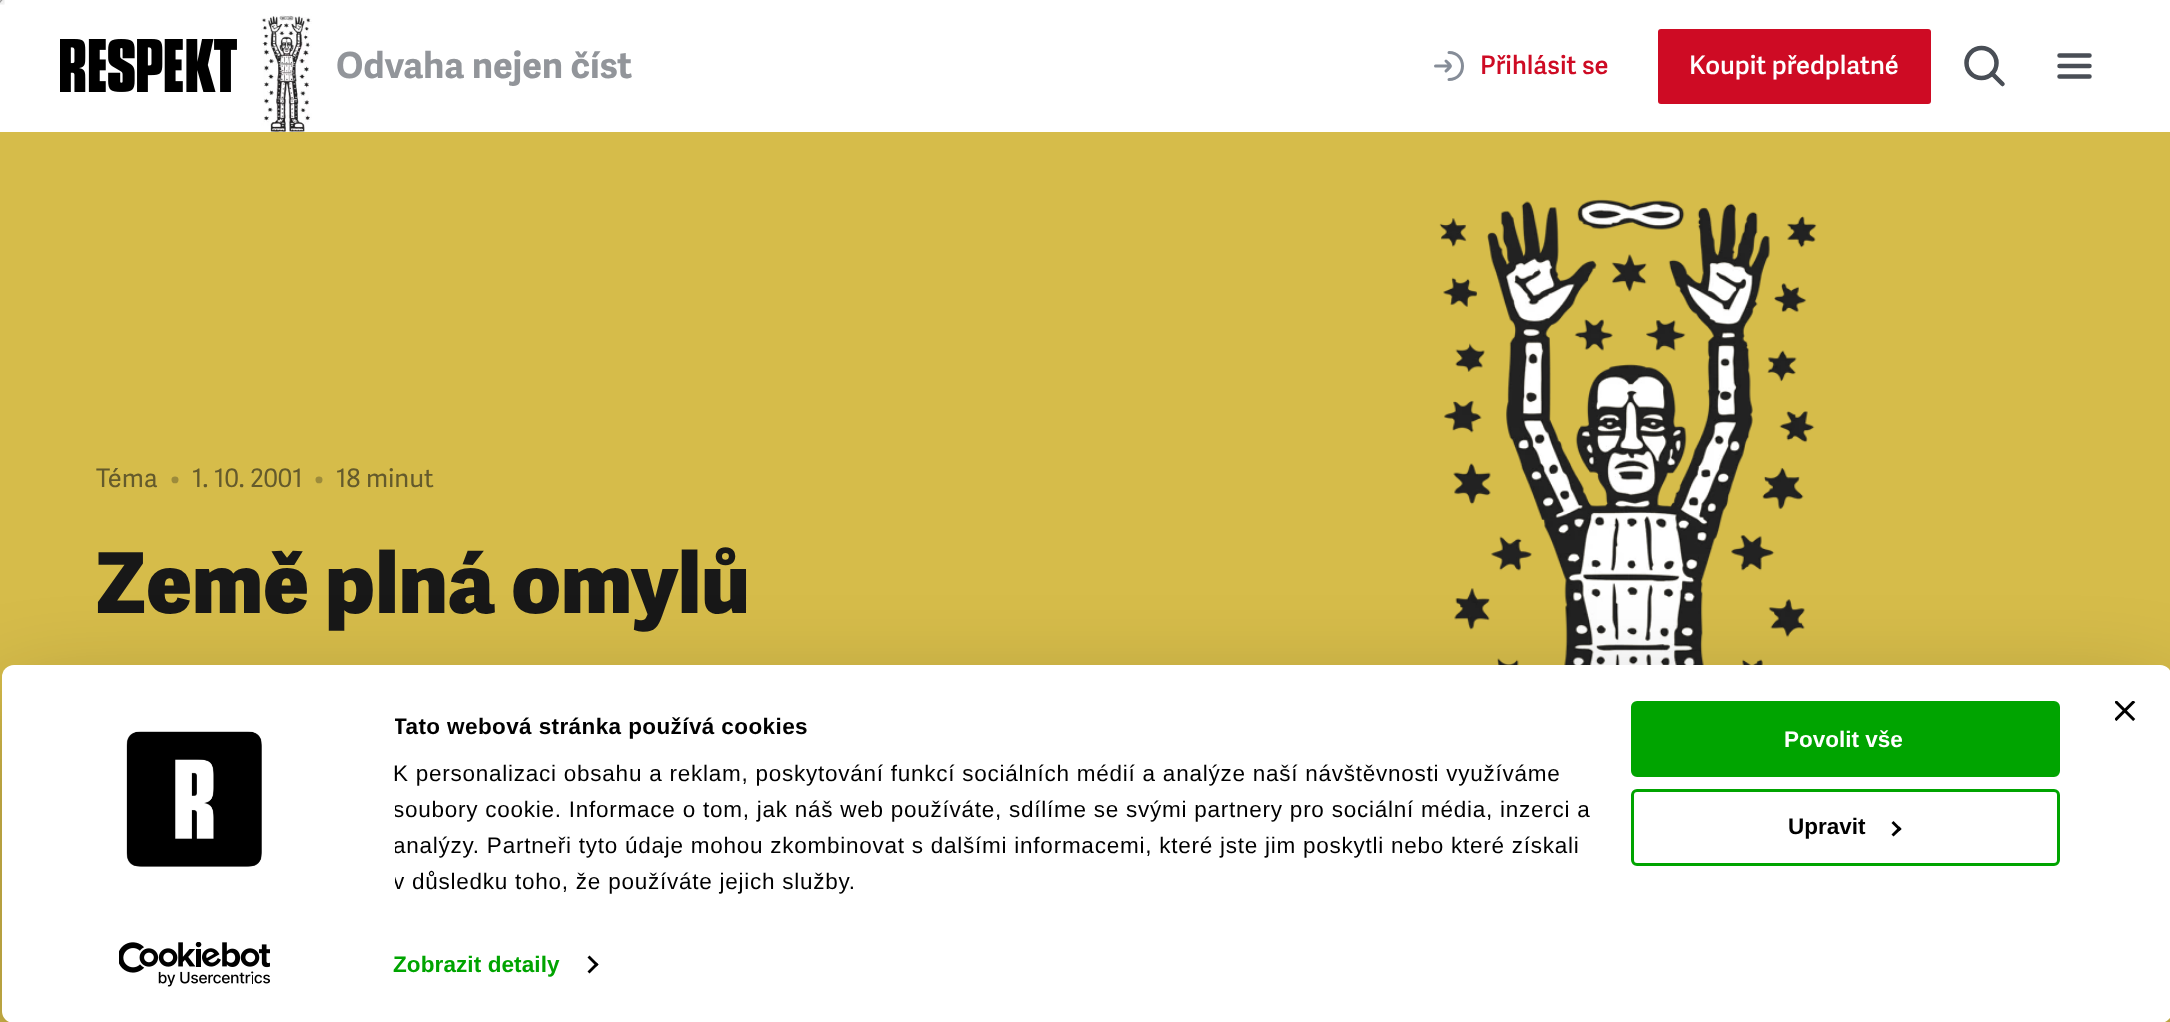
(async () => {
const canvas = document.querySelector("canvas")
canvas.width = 2170
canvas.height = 1022
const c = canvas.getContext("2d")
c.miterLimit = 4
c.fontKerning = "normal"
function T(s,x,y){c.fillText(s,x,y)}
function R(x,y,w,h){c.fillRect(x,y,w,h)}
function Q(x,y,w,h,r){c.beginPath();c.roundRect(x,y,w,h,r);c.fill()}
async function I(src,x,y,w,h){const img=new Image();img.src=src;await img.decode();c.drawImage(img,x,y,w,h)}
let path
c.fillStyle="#fff"
R(0,0,2170,1022)
c.fillStyle="#9f9f9f"
path = new Path2D("M-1.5-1.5h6l-3 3z")
c.fill(path)
c.fillStyle="#eee"
path = new Path2D("M4.5-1.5v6l-3-3z")
c.fill(path)
path = new Path2D("M4.5 4.5h-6l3-3z")
c.fill(path)
c.fillStyle="#9f9f9f"
path = new Path2D("M-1.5 4.5v-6l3 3z")
c.fill(path)
await I("1.png",60,39,177,53)
await I("2.png",261,15,51,117)
c.font="bold 36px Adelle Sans"
c.fillStyle="#92959a"
T("Odvaha nejen číst",336,78)
path = new Path2D("M1449 79.5c18 0 18-27 0-27m-13.5 13.5h14.5m-4-5c6 6 6 4 0 10")
c.strokeStyle="#868d98"
c.lineWidth=3
c.lineCap="round"
c.lineJoin="round"
c.stroke(path)
c.font="600 25.5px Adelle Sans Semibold"
c.fillStyle="#ce0b24"
T("Přihlásit se",1480,74)
Q(1658,29,273,75,3)
c.fillStyle="#fff"
T("Koupit předplatné",1689,74)
c.beginPath()
c.arc(1981.5,63,15,0,7)
c.strokeStyle="#494e56"
c.lineWidth=4.5
c.stroke()
path = new Path2D("M1992 73.5l10.5 10.5")
c.stroke(path)
path = new Path2D("M2059.5 55.5h30m-30 10.5h30m-30 10.5h30")
c.stroke(path)
c.fillStyle="#d6bc4a"
R(0,132,2170,890)
c.font="25.5px Adelle Sans"
c.fillStyle="#645a2c"
T("Téma",96,487)
c.fillStyle="#9d8b3b"
T("•",170,487)
c.fillStyle="#645a2c"
T("1. 10. 2001",192,487)
c.fillStyle="#9d8b3b"
T("•",314,487)
c.fillStyle="#645a2c"
T("18 minut",336,487)
c.font="800 84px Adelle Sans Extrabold"
c.fillStyle="#181818"
T("Země plná omylů",96,613)
await I("3.png",1439,199,378,466)
c.save()
path = new Path2D("M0 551h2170v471h-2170zm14 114h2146c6.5 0 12 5.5 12 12v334c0 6.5-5.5 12-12 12h-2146c-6.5 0-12-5.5-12-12v-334c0-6.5 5.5-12 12-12z")
c.clip(path,"evenodd")
c.fillStyle="#0000004d"
c.filter="blur(52.5px)"
c.beginPath()
c.roundRect(2,710,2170,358,12)
c.fill()
c.filter="none"
c.restore()
c.fillStyle="#fff"
Q(2,665,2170,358,12)
await I("4.png",2115,701,21,20)
await I("5.png",126,731,136,136)
await I("6.png",119,942,151,45)
c.save()
c.beginPath()
c.rect(395,710,1227,190)
c.clip()
c.letterSpacing="0.4px"
c.font="bold 22.5px Liberation Sans"
c.fillStyle="#000"
T("Tato webová stránka používá cookies",393,734)
c.restore()
c.letterSpacing="0.75px"
c.font="22.5px Liberation Sans"
c.fillStyle="#000"
T("K personalizaci obsahu a reklam, poskytování funkcí sociálních médií a analýze naší návštěvnosti využíváme",393,781)
c.save()
c.beginPath()
c.rect(395,710,1227,190)
c.clip()
T("soubory cookie. Informace o tom, jak náš web používáte, sdílíme se svými partnery pro sociální média, inzerci a",393,817)
T("analýzy. Partneři tyto údaje mohou zkombinovat s dalšími informacemi, které jste jim poskytli nebo které získali",393,853)
T("v důsledku toho, že používáte jejich služby.",393,889)
c.restore()
c.letterSpacing="0.1px"
c.font="bold 22.5px Liberation Sans"
c.fillStyle="#00a400"
T("Zobrazit detaily",393,972)
c.fillStyle="#000"
path = new Path2D("M589.5 955.5l9 9l-2 2l-9-9z")
c.fill(path)
path = new Path2D("M596.5 962.5l2 2l-9 9l-2-2z")
c.fill(path)
c.fillStyle="#00a400"
c.beginPath()
c.roundRect(1632.5,702.5,426,73,4.5)
c.fill()
c.strokeStyle="#00a400"
c.lineWidth=3
c.lineJoin="miter"
c.stroke()
c.letterSpacing="0px"
c.fillStyle="#fff"
T("Povolit vše",1784,747)
c.beginPath()
c.roundRect(1632.5,790.5,426,74,4.5)
c.stroke()
c.fillStyle="#000"
T("Upravit",1788,834)
path = new Path2D("M1893.5 821l8 8l-2 2l-8-8z")
c.fill(path)
path = new Path2D("M1899.5 826.5l2 2.5l-8 7.5l-2-2z")
c.fill(path)
})()
